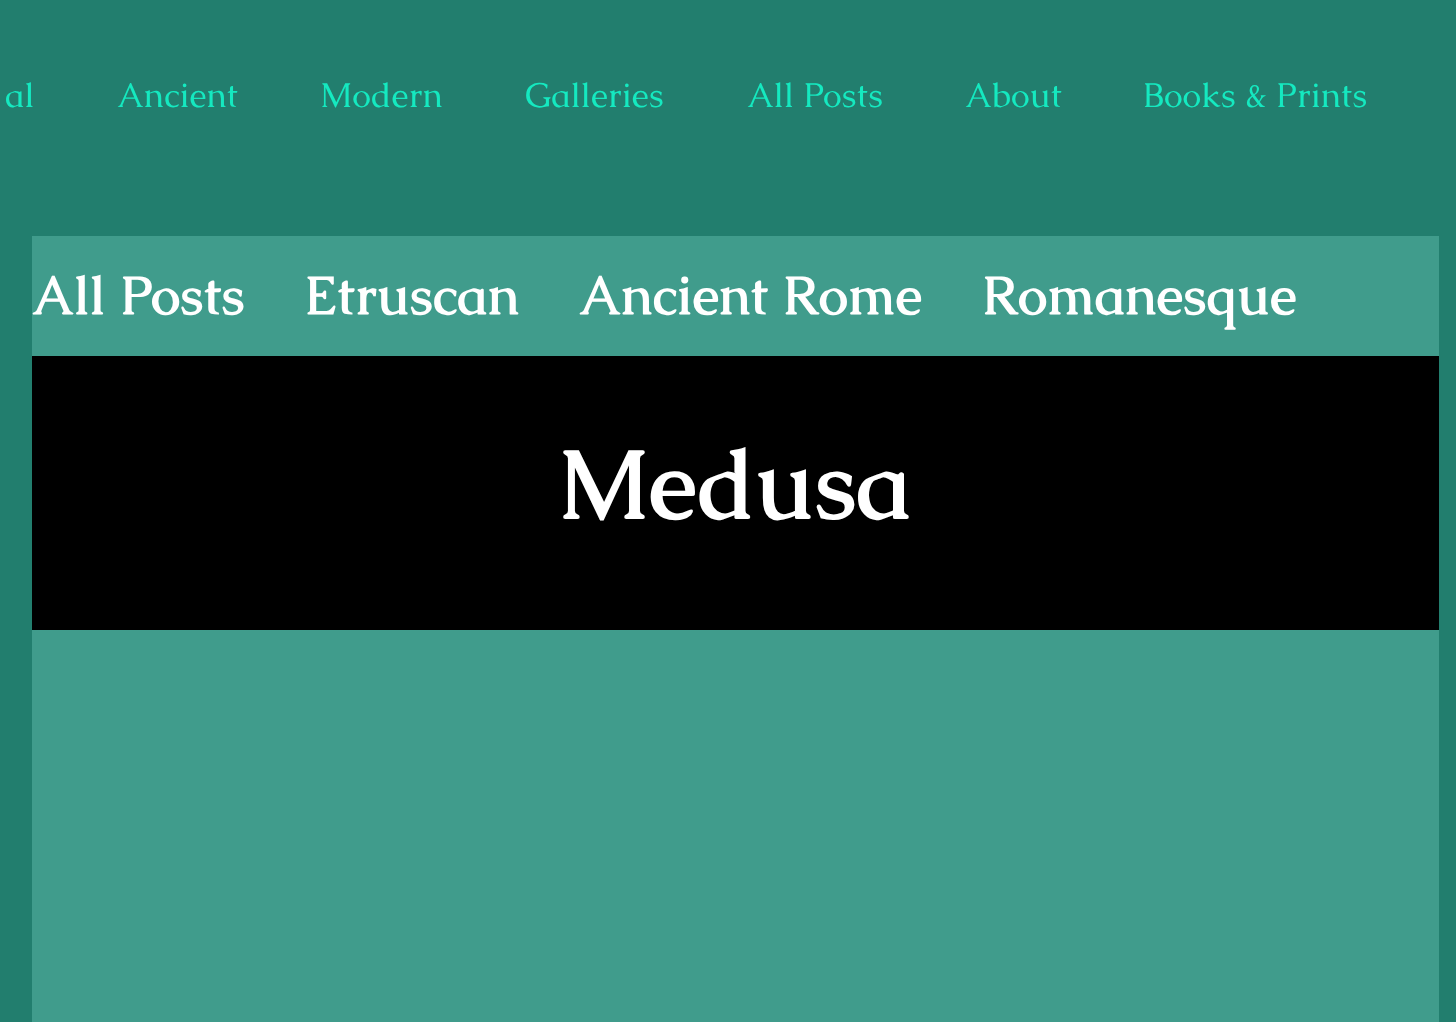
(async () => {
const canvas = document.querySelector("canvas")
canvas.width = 1456
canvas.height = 1022
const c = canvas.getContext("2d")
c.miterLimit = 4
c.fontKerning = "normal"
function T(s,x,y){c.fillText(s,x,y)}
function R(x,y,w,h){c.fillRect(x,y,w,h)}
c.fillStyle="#227e6e"
R(0,0,1456,1022)
c.font="34.5px Caudex"
c.fillStyle="#15e9c0"
T("al",5,107)
T("Ancient",117,107)
T("Modern",320,107)
T("Galleries",525,107)
T("All Posts",747,107)
T("About",965,107)
T("Books & Prints",1143,107)
c.fillStyle="#409c8c"
R(32,236,1407,786)
c.font="bold 54px Caudex"
c.fillStyle="#fff"
T("All Posts",32,314)
T("Etruscan",304,314)
T("Ancient Rome",579,314)
T("Romanesque",982,314)
c.fillStyle="#000"
R(32,356,1407,274)
c.font="bold 97.5px Caudex"
c.fillStyle="#fff"
T("Medusa",558,518)
})()
